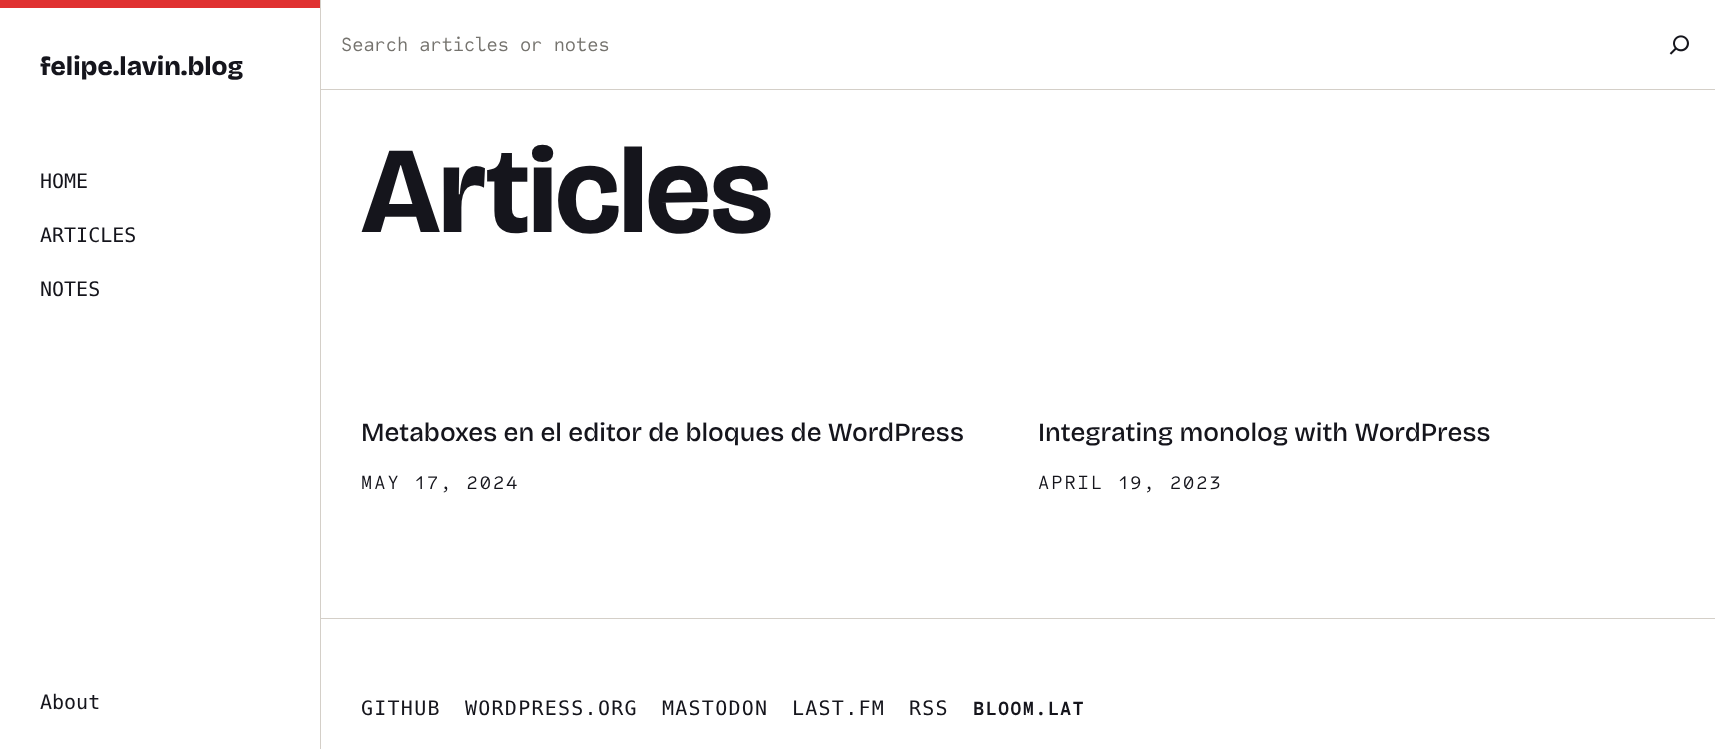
(async () => {
const canvas = document.querySelector("canvas")
canvas.width = 1715
canvas.height = 749
const c = canvas.getContext("2d")
c.miterLimit = 4
c.fontKerning = "normal"
function T(s,x,y){c.fillText(s,x,y)}
function R(x,y,w,h){c.fillRect(x,y,w,h)}
async function I(src,x,y,w,h){const img=new Image();img.src=src;await img.decode();c.drawImage(img,x,y,w,h)}
c.fillStyle="#fff"
R(0,0,1715,749)
c.fillStyle="#d4cfc8"
R(320,0,1,749)
c.fillStyle="#e03131"
R(0,0,320,8)
c.font="800 26.2px Bricolage Grotesque"
c.fillStyle="#15151c"
T("felipe.lavin.blog",40,75)
c.font="20px DejaVu Sans Mono"
T("HOME",40,188)
T("ARTICLES",40,242)
T("NOTES",40,296)
T("About",40,709)
c.fillStyle="#d4cfc8"
R(321,89,1394,1)
c.font="20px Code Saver"
c.fillStyle="#75736e"
T("Search articles or notes",341,51)
await I("1.png",1669,35,20,20)
c.letterSpacing="-1.25px"
c.font="bold 123px Bricolage Grotesque"
c.fillStyle="#15151c"
T("Articles",361,232)
c.letterSpacing="0px"
c.font="500 26.2px Bricolage Grotesque"
T("Metaboxes en el editor de bloques de WordPress",361,441)
c.letterSpacing="2px"
c.font="20px Code Saver"
T("MAY 17, 2024",361,489)
c.letterSpacing="0px"
c.font="500 26.2px Bricolage Grotesque"
T("Integrating monolog with WordPress",1038,441)
c.letterSpacing="2px"
c.font="20px Code Saver"
T("APRIL 19, 2023",1038,489)
c.fillStyle="#d4cfc8"
R(321,618,1394,1)
c.letterSpacing="1.25px"
c.font="20px DejaVu Sans Mono"
c.fillStyle="#15151c"
T("GITHUB",361,715)
T("WORDPRESS.ORG",465,715)
T("MASTODON",662,715)
T("LAST.FM",792,715)
T("RSS",909,715)
c.font="bold 20px Code Saver"
T("BLOOM.LAT",973,715)
})()
